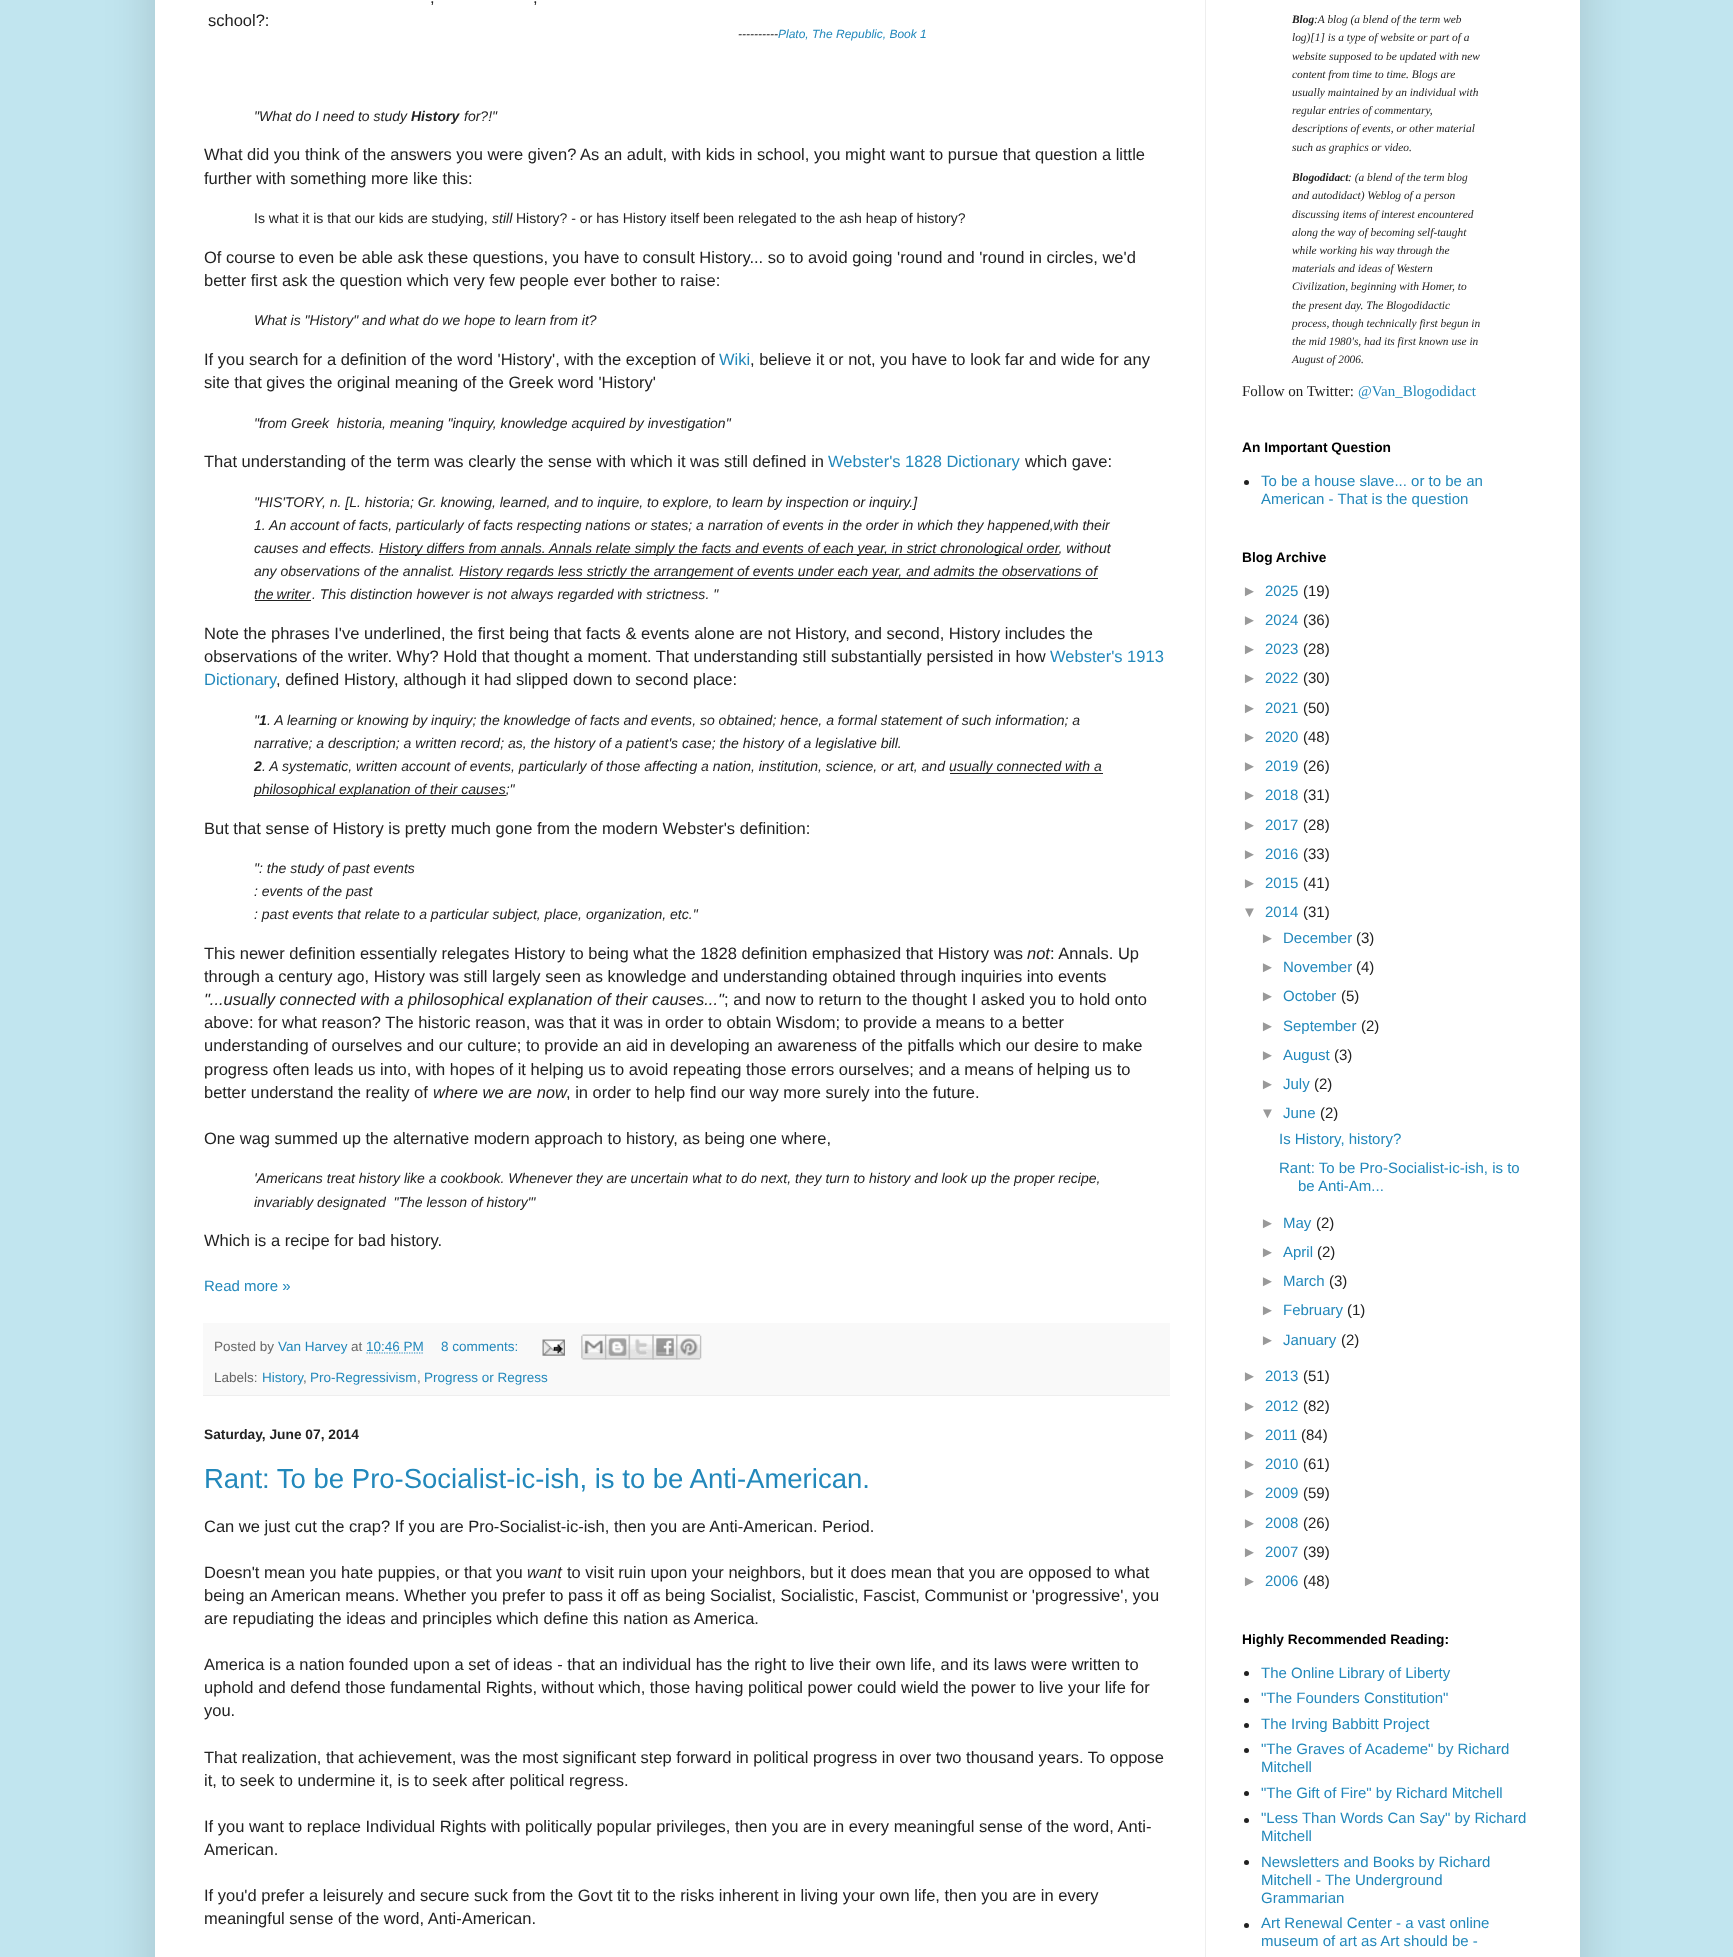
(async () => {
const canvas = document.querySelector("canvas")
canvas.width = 1733
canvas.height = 1957
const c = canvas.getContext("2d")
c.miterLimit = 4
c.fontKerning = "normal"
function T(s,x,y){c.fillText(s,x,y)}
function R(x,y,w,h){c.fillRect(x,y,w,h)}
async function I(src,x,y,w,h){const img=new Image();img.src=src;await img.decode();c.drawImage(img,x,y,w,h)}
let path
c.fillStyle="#c1e5ef"
R(0,0,1733,1957)
c.fillStyle="#00000026"
c.filter="blur(25px)"
c.beginPath()
c.rect(155,-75,1425,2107)
c.fill()
c.filter="none"
c.fillStyle="#fff"
R(155,0,1425,1957)
c.fillStyle="#eee"
R(1205,0,1,1957)
c.font="16.5px Liberation Sans"
c.fillStyle="#222"
T(",",430,3)
T(",",533,3)
T("school?:",208,26)
c.font="italic 12px Liberation Sans"
T("----------",738,38)
c.fillStyle="#28b"
T("Plato, The Republic, Book 1",778,38)
c.font="italic 14.03px Liberation Sans"
c.fillStyle="#222"
T("\"What do I need to study",254,121)
c.font="italic bold 14.03px Liberation Sans"
T("History",411,121)
c.font="italic 14.03px Liberation Sans"
T("for?!\"",464,121)
c.font="16.5px Liberation Sans"
T("What did you think of the answers you were given? As an adult, with kids in school, you might want to pursue that question a little",204,160)
T("further with something more like this:",204,184)
c.font="14.03px Liberation Sans"
T("Is what it is that our kids are studying,",254,223)
c.font="italic 14.03px Liberation Sans"
T("still",492,223)
c.font="14.03px Liberation Sans"
T("History? - or has History itself been relegated to the ash heap of history?",516,223)
c.font="16.5px Liberation Sans"
T("Of course to even be able ask these questions, you have to consult History... so to avoid going 'round and 'round in circles, we'd",204,263)
T("better first ask the question which very few people ever bother to raise:",204,286)
c.font="italic 14.03px Liberation Sans"
T("What is \"History\" and what do we hope to learn from it?",254,325)
c.font="16.5px Liberation Sans"
T("If you search for a definition of the word 'History', with the exception of",204,365)
c.fillStyle="#28b"
T("Wiki",719,365)
c.fillStyle="#222"
T(", believe it or not, you have to look far and wide for any",750,365)
T("site that gives the original meaning of the Greek word 'History'",204,388)
c.font="italic 14.03px Liberation Sans"
T("\"from Greek  historia, meaning \"inquiry, knowledge acquired by investigation\"",254,428)
c.font="16.5px Liberation Sans"
T("That understanding of the term was clearly the sense with which it was still defined in",204,467)
c.fillStyle="#28b"
T("Webster's 1828 Dictionary",828,467)
c.fillStyle="#222"
T("which gave:",1025,467)
c.font="italic 14.03px Liberation Sans"
T("\"HIS'TORY, n. [L. historia; Gr. knowing, learned, and to inquire, to explore, to learn by inspection or inquiry.]",254,507)
T("1. An account of facts, particularly of facts respecting nations or states; a narration of events in the order in which they happened,with their",254,530)
T("causes and effects.",254,553)
R(379,554,680,1)
T("History differs from annals. Annals relate simply the facts and events of each year, in strict chronological order, without",379,553)
T("any observations of the annalist.",254,576)
R(460,578,638,1)
T("History regards less strictly the arrangement of events under each year, and admits the observations of",459,576)
c.wordSpacing="-1px"
T("the writer",254,599)
c.wordSpacing="0px"
T(". This distinction however is not always regarded with strictness. \"",312,599)
R(255,600,56,1)
c.font="16.5px Liberation Sans"
T("Note the phrases I've underlined, the first being that facts & events alone are not History, and second, History includes the",204,639)
T("observations of the writer. Why? Hold that thought a moment. That understanding still substantially persisted in how",204,662)
c.fillStyle="#28b"
T("Webster's 1913",1050,662)
T("Dictionary",204,685)
c.fillStyle="#222"
T(", defined History, although it had slipped down to second place:",276,685)
c.font="italic 14.03px Liberation Sans"
T("\"",254,725)
c.font="italic bold 14.03px Liberation Sans"
T("1",259,725)
c.font="italic 14.03px Liberation Sans"
T(". A learning or knowing by inquiry; the knowledge of facts and events, so obtained; hence, a formal statement of such information; a",267,725)
T("narrative; a description; a written record; as, the history of a patient's case; the history of a legislative bill.",254,748)
c.font="italic bold 14.03px Liberation Sans"
T("2",254,771)
c.font="italic 14.03px Liberation Sans"
T(". A systematic, written account of events, particularly of those affecting a nation, institution, science, or art, and",262,771)
R(950,773,153,1)
T("usually connected with a",949,771)
R(255,795,251,1)
T("philosophical explanation of their causes;\"",254,794)
c.font="16.5px Liberation Sans"
T("But that sense of History is pretty much gone from the modern Webster's definition:",204,834)
c.font="italic 14.03px Liberation Sans"
T("\": the study of past events",254,873)
T(": events of the past",254,896)
T(": past events that relate to a particular subject, place, organization, etc.\"",254,919)
c.font="16.5px Liberation Sans"
T("This newer definition essentially relegates History to being what the 1828 definition emphasized that History was",204,959)
c.font="italic 16.5px Liberation Sans"
T("not",1027,959)
c.font="16.5px Liberation Sans"
T(": Annals. Up",1050,959)
T("through a century ago, History was still largely seen as knowledge and understanding obtained through inquiries into events",204,982)
c.font="italic 16.5px Liberation Sans"
T("\"...usually connected with a philosophical explanation of their causes...\"",204,1005)
c.font="16.5px Liberation Sans"
T("; and now to return to the thought I asked you to hold onto",724,1005)
T("above: for what reason? The historic reason, was that it was in order to obtain Wisdom; to provide a means to a better",204,1028)
T("understanding of ourselves and our culture; to provide an aid in developing an awareness of the pitfalls which our desire to make",204,1051)
T("progress often leads us into, with hopes of it helping us to avoid repeating those errors ourselves; and a means of helping us to",204,1075)
T("better understand the reality of",204,1098)
c.font="italic 16.5px Liberation Sans"
T("where we are now",433,1098)
c.font="16.5px Liberation Sans"
T(", in order to help find our way more surely into the future.",566,1098)
T("One wag summed up the alternative modern approach to history, as being one where,",204,1144)
c.font="italic 14.03px Liberation Sans"
T("'Americans treat history like a cookbook. Whenever they are uncertain what to do next, they turn to history and look up the proper recipe,",254,1183)
T("invariably designated  \"The lesson of history\"'",254,1207)
c.font="16.5px Liberation Sans"
T("Which is a recipe for bad history.",204,1246)
c.font="15px Liberation Sans"
c.fillStyle="#28b"
T("Read more »",204,1291)
c.fillStyle="#f9f9f9"
R(203,1323,967,72)
c.fillStyle="#eee"
R(203,1395,967,1)
c.font="13.5px Liberation Sans"
c.fillStyle="#666"
T("Posted by",214,1351)
c.fillStyle="#28b"
T("Van Harvey",278,1351)
c.fillStyle="#666"
T("at",351,1351)
c.fillStyle="#28b"
T("10:46 PM",366,1351)
path = new Path2D("M366.5 1353h57.5")
c.strokeStyle="#28b"
c.lineWidth=1.2
c.setLineDash([1.25,1.25])
c.stroke(path)
T("8 comments:",441,1351)
await I("1.png",542,1339,23,17)
await I("2.png",581,1334,26,26)
await I("3.png",605,1334,25,26)
await I("4.png",628,1334,26,26)
await I("5.png",652,1334,26,26)
await I("6.png",676,1334,26,26)
c.fillStyle="#666"
T("Labels:",214,1382)
c.fillStyle="#28b"
T("History",262,1382)
c.fillStyle="#666"
T(",",303,1382)
c.fillStyle="#28b"
T("Pro-Regressivism",310,1382)
c.fillStyle="#666"
T(",",417,1382)
c.fillStyle="#28b"
T("Progress or Regress",424,1382)
c.font="bold 13.75px Liberation Sans"
c.fillStyle="#222"
T("Saturday, June 07, 2014",204,1439)
c.font="27.5px Liberation Sans"
c.fillStyle="#28b"
T("Rant: To be Pro-Socialist-ic-ish, is to be Anti-American.",204,1488)
c.font="16.5px Liberation Sans"
c.fillStyle="#222"
T("Can we just cut the crap? If you are Pro-Socialist-ic-ish, then you are Anti-American. Period.",204,1532)
T("Doesn't mean you hate puppies, or that you",204,1578)
c.font="italic 16.5px Liberation Sans"
T("want",527,1578)
c.font="16.5px Liberation Sans"
T("to visit ruin upon your neighbors, but it does mean that you are opposed to what",567,1578)
T("being an American means. Whether you prefer to pass it off as being Socialist, Socialistic, Fascist, Communist or 'progressive', you",204,1601)
T("are repudiating the ideas and principles which define this nation as America.",204,1624)
T("America is a nation founded upon a set of ideas - that an individual has the right to live their own life, and its laws were written to",204,1670)
T("uphold and defend those fundamental Rights, without which, those having political power could wield the power to live your life for",204,1693)
T("you.",204,1716)
T("That realization, that achievement, was the most significant step forward in political progress in over two thousand years. To oppose",204,1763)
T("it, to seek to undermine it, is to seek after political regress.",204,1786)
T("If you want to replace Individual Rights with politically popular privileges, then you are in every meaningful sense of the word, Anti-",204,1832)
T("American.",204,1855)
T("If you'd prefer a leisurely and secure suck from the Govt tit to the risks inherent in living your own life, then you are in every",204,1901)
T("meaningful sense of the word, Anti-American.",204,1924)
c.font="italic bold 11.4px Liberation Serif"
T("Blog",1292,23)
c.font="italic 11.4px Liberation Serif"
T(":A blog (a blend of the term web",1314,23)
T("log)[1] is a type of website or part of a",1292,41)
T("website supposed to be updated with new",1292,60)
T("content from time to time. Blogs are",1292,78)
T("usually maintained by an individual with",1292,96)
T("regular entries of commentary,",1292,114)
T("descriptions of events, or other material",1292,132)
T("such as graphics or video.",1292,151)
c.font="italic bold 11.4px Liberation Serif"
T("Blogodidact",1292,181)
c.font="italic 11.4px Liberation Serif"
T(": (a blend of the term blog",1348,181)
T("and autodidact) Weblog of a person",1292,199)
T("discussing items of interest encountered",1292,218)
T("along the way of becoming self-taught",1292,236)
T("while working his way through the",1292,254)
T("materials and ideas of Western",1292,272)
T("Civilization, beginning with Homer, to",1292,290)
T("the present day. The Blogodidactic",1292,309)
T("process, though technically first begun in",1292,327)
T("the mid 1980's, had its first known use in",1292,345)
T("August of 2006.",1292,363)
c.font="15px Liberation Serif"
T("Follow on Twitter:",1242,396)
c.fillStyle="#28b"
T("@Van_Blogodidact",1358,396)
c.font="bold 13.75px Liberation Sans"
c.fillStyle="#000"
T("An Important Question",1242,452)
c.fillStyle="#222"
c.beginPath()
c.arc(1246.5,482.5,2.5,0,7)
c.fill()
c.font="15px Liberation Sans"
c.fillStyle="#28b"
T("To be a house slave... or to be an",1261,486)
T("American - That is the question",1261,504)
c.font="bold 13.75px Liberation Sans"
c.fillStyle="#000"
T("Blog Archive",1242,562)
c.font="15px Liberation Sans"
c.fillStyle="#999"
T("►",1242,596)
c.fillStyle="#28b"
T("2025",1265,596)
c.fillStyle="#222"
T("(19)",1303,596)
c.fillStyle="#999"
T("►",1242,625)
c.fillStyle="#28b"
T("2024",1265,625)
c.fillStyle="#222"
T("(36)",1303,625)
c.fillStyle="#999"
T("►",1242,654)
c.fillStyle="#28b"
T("2023",1265,654)
c.fillStyle="#222"
T("(28)",1303,654)
c.fillStyle="#999"
T("►",1242,683)
c.fillStyle="#28b"
T("2022",1265,683)
c.fillStyle="#222"
T("(30)",1303,683)
c.fillStyle="#999"
T("►",1242,713)
c.fillStyle="#28b"
T("2021",1265,713)
c.fillStyle="#222"
T("(50)",1303,713)
c.fillStyle="#999"
T("►",1242,742)
c.fillStyle="#28b"
T("2020",1265,742)
c.fillStyle="#222"
T("(48)",1303,742)
c.fillStyle="#999"
T("►",1242,771)
c.fillStyle="#28b"
T("2019",1265,771)
c.fillStyle="#222"
T("(26)",1303,771)
c.fillStyle="#999"
T("►",1242,800)
c.fillStyle="#28b"
T("2018",1265,800)
c.fillStyle="#222"
T("(31)",1303,800)
c.fillStyle="#999"
T("►",1242,830)
c.fillStyle="#28b"
T("2017",1265,830)
c.fillStyle="#222"
T("(28)",1303,830)
c.fillStyle="#999"
T("►",1242,859)
c.fillStyle="#28b"
T("2016",1265,859)
c.fillStyle="#222"
T("(33)",1303,859)
c.fillStyle="#999"
T("►",1242,888)
c.fillStyle="#28b"
T("2015",1265,888)
c.fillStyle="#222"
T("(41)",1303,888)
c.fillStyle="#999"
T("▼",1242,917)
c.fillStyle="#28b"
T("2014",1265,917)
c.fillStyle="#222"
T("(31)",1303,917)
c.fillStyle="#999"
T("►",1260,943)
c.fillStyle="#28b"
T("December",1283,943)
c.fillStyle="#222"
T("(3)",1356,943)
c.fillStyle="#999"
T("►",1260,972)
c.fillStyle="#28b"
T("November",1283,972)
c.fillStyle="#222"
T("(4)",1356,972)
c.fillStyle="#999"
T("►",1260,1001)
c.fillStyle="#28b"
T("October",1283,1001)
c.fillStyle="#222"
T("(5)",1341,1001)
c.fillStyle="#999"
T("►",1260,1031)
c.fillStyle="#28b"
T("September",1283,1031)
c.fillStyle="#222"
T("(2)",1361,1031)
c.fillStyle="#999"
T("►",1260,1060)
c.fillStyle="#28b"
T("August",1283,1060)
c.fillStyle="#222"
T("(3)",1334,1060)
c.fillStyle="#999"
T("►",1260,1089)
c.fillStyle="#28b"
T("July",1283,1089)
c.fillStyle="#222"
T("(2)",1314,1089)
c.fillStyle="#999"
T("▼",1260,1118)
c.fillStyle="#28b"
T("June",1283,1118)
c.fillStyle="#222"
T("(2)",1320,1118)
c.fillStyle="#28b"
T("Is History, history?",1279,1144)
T("Rant: To be Pro-Socialist-ic-ish, is to",1279,1173)
T("be Anti-Am...",1298,1191)
c.fillStyle="#999"
T("►",1260,1228)
c.fillStyle="#28b"
T("May",1283,1228)
c.fillStyle="#222"
T("(2)",1316,1228)
c.fillStyle="#999"
T("►",1260,1257)
c.fillStyle="#28b"
T("April",1283,1257)
c.fillStyle="#222"
T("(2)",1317,1257)
c.fillStyle="#999"
T("►",1260,1286)
c.fillStyle="#28b"
T("March",1283,1286)
c.fillStyle="#222"
T("(3)",1329,1286)
c.fillStyle="#999"
T("►",1260,1315)
c.fillStyle="#28b"
T("February",1283,1315)
c.fillStyle="#222"
T("(1)",1347,1315)
c.fillStyle="#999"
T("►",1260,1345)
c.fillStyle="#28b"
T("January",1283,1345)
c.fillStyle="#222"
T("(2)",1341,1345)
c.fillStyle="#999"
T("►",1242,1381)
c.fillStyle="#28b"
T("2013",1265,1381)
c.fillStyle="#222"
T("(51)",1303,1381)
c.fillStyle="#999"
T("►",1242,1411)
c.fillStyle="#28b"
T("2012",1265,1411)
c.fillStyle="#222"
T("(82)",1303,1411)
c.fillStyle="#999"
T("►",1242,1440)
c.fillStyle="#28b"
T("2011",1265,1440)
c.fillStyle="#222"
T("(84)",1301,1440)
c.fillStyle="#999"
T("►",1242,1469)
c.fillStyle="#28b"
T("2010",1265,1469)
c.fillStyle="#222"
T("(61)",1303,1469)
c.fillStyle="#999"
T("►",1242,1498)
c.fillStyle="#28b"
T("2009",1265,1498)
c.fillStyle="#222"
T("(59)",1303,1498)
c.fillStyle="#999"
T("►",1242,1528)
c.fillStyle="#28b"
T("2008",1265,1528)
c.fillStyle="#222"
T("(26)",1303,1528)
c.fillStyle="#999"
T("►",1242,1557)
c.fillStyle="#28b"
T("2007",1265,1557)
c.fillStyle="#222"
T("(39)",1303,1557)
c.fillStyle="#999"
T("►",1242,1586)
c.fillStyle="#28b"
T("2006",1265,1586)
c.fillStyle="#222"
T("(48)",1303,1586)
c.font="bold 13.75px Liberation Sans"
c.fillStyle="#000"
T("Highly Recommended Reading:",1242,1644)
c.fillStyle="#222"
c.beginPath()
c.arc(1246.5,1673.5,2.5,0,7)
c.fill()
c.font="15px Liberation Sans"
c.fillStyle="#28b"
T("The Online Library of Liberty",1261,1678)
c.fillStyle="#222"
c.beginPath()
c.arc(1246.5,1700.5,2.5,0,7)
c.fill()
c.fillStyle="#28b"
T("\"The Founders Constitution\"",1261,1703)
c.fillStyle="#222"
c.beginPath()
c.arc(1246.5,1725.5,2.5,0,7)
c.fill()
c.fillStyle="#28b"
T("The Irving Babbitt Project",1261,1729)
c.fillStyle="#222"
c.beginPath()
c.arc(1246.5,1750.5,2.5,0,7)
c.fill()
c.fillStyle="#28b"
T("\"The Graves of Academe\" by Richard",1261,1754)
T("Mitchell",1261,1772)
c.fillStyle="#222"
c.beginPath()
c.arc(1246.5,1793.5,2.5,0,7)
c.fill()
c.fillStyle="#28b"
T("\"The Gift of Fire\" by Richard Mitchell",1261,1798)
c.fillStyle="#222"
c.beginPath()
c.arc(1246.5,1820.5,2.5,0,7)
c.fill()
c.fillStyle="#28b"
T("\"Less Than Words Can Say\" by Richard",1261,1823)
T("Mitchell",1261,1841)
c.fillStyle="#222"
c.beginPath()
c.arc(1246.5,1862.5,2.5,0,7)
c.fill()
c.fillStyle="#28b"
T("Newsletters and Books by Richard",1261,1867)
T("Mitchell - The Underground",1261,1885)
T("Grammarian",1261,1903)
c.fillStyle="#222"
c.beginPath()
c.arc(1246.5,1925.5,2.5,0,7)
c.fill()
c.fillStyle="#28b"
T("Art Renewal Center - a vast online",1261,1928)
T("museum of art as Art should be -",1261,1946)
})()
